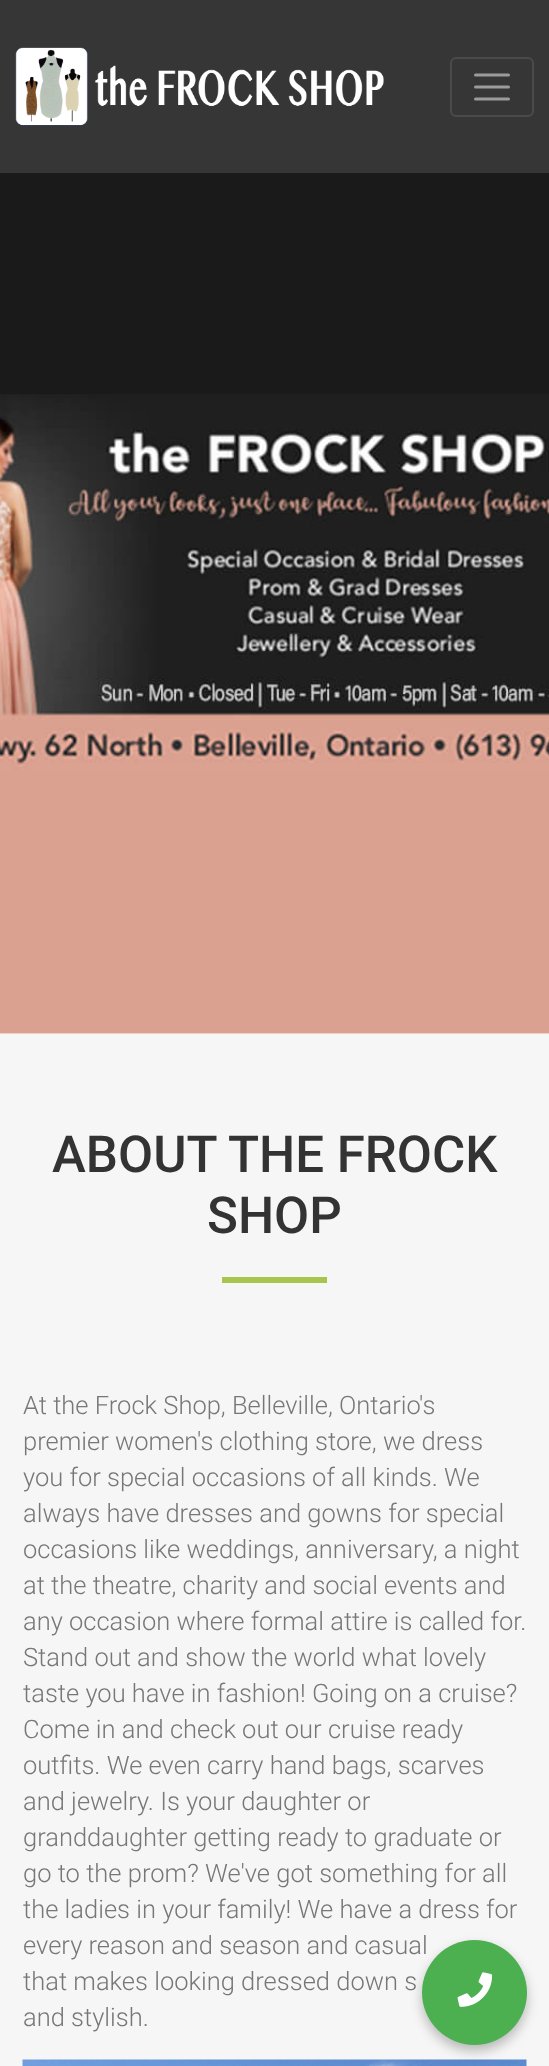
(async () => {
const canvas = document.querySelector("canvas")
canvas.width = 549
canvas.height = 2066
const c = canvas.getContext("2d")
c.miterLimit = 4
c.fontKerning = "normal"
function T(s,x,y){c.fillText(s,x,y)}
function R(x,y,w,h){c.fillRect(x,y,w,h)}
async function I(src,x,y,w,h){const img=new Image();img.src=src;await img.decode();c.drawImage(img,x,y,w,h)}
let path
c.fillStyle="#fff"
R(0,0,549,2066)
c.fillStyle="#363636"
R(0,0,549,173)
await I("1.png",15,47,369,79)
c.beginPath()
c.roundRect(451,58,82,58,5)
c.strokeStyle="#4a4a4a"
c.lineWidth=2
c.stroke()
path = new Path2D("M475.5 75h33m-33 12h33m-33 12h33")
c.strokeStyle="#9b9b9b"
c.lineWidth=3
c.lineCap="round"
c.stroke(path)
await I("2.png",0,173,549,861)
c.fillStyle="#f6f6f6"
R(0,1034,549,1032)
c.font="500 51px Roboto"
c.fillStyle="#333"
T("ABOUT THE FROCK",52,1172)
T("SHOP",207,1233)
c.fillStyle="#a7c44c"
R(222,1277,105,6)
c.font="300 25.5px Roboto"
c.fillStyle="#777"
T("At the Frock Shop, Belleville, Ontario's",23,1414)
T("premier women's clothing store, we dress",23,1450)
T("you for special occasions of all kinds. We",23,1486)
T("always have dresses and gowns for special",23,1522)
T("occasions like weddings, anniversary, a night",23,1558)
T("at the theatre, charity and social events and",23,1594)
T("any occasion where formal attire is called for.",23,1630)
T("Stand out and show the world what lovely",23,1666)
T("taste you have in fashion! Going on a cruise?",23,1702)
T("Come in and check out our cruise ready",23,1738)
T("outfits. We even carry hand bags, scarves",23,1774)
T("and jewelry. Is your daughter or",23,1810)
T("granddaughter getting ready to graduate or",23,1846)
T("go to the prom? We've got something for all",23,1882)
T("the ladies in your family! We have a dress for",23,1918)
T("every reason and season and casual",23,1954)
T("that makes looking dressed down s",23,1990)
T("and stylish.",23,2026)
await I("3.png",22,2059,505,7)
c.fillStyle="#00000040"
c.filter="blur(6px)"
c.beginPath()
c.roundRect(422,1946,105,105,52.5)
c.fill()
c.filter="none"
c.fillStyle="#4caf50"
c.beginPath()
c.arc(474.5,1992.5,52.5,0,7)
c.fill()
await I("4.png",457,1972,36,35)
})()
